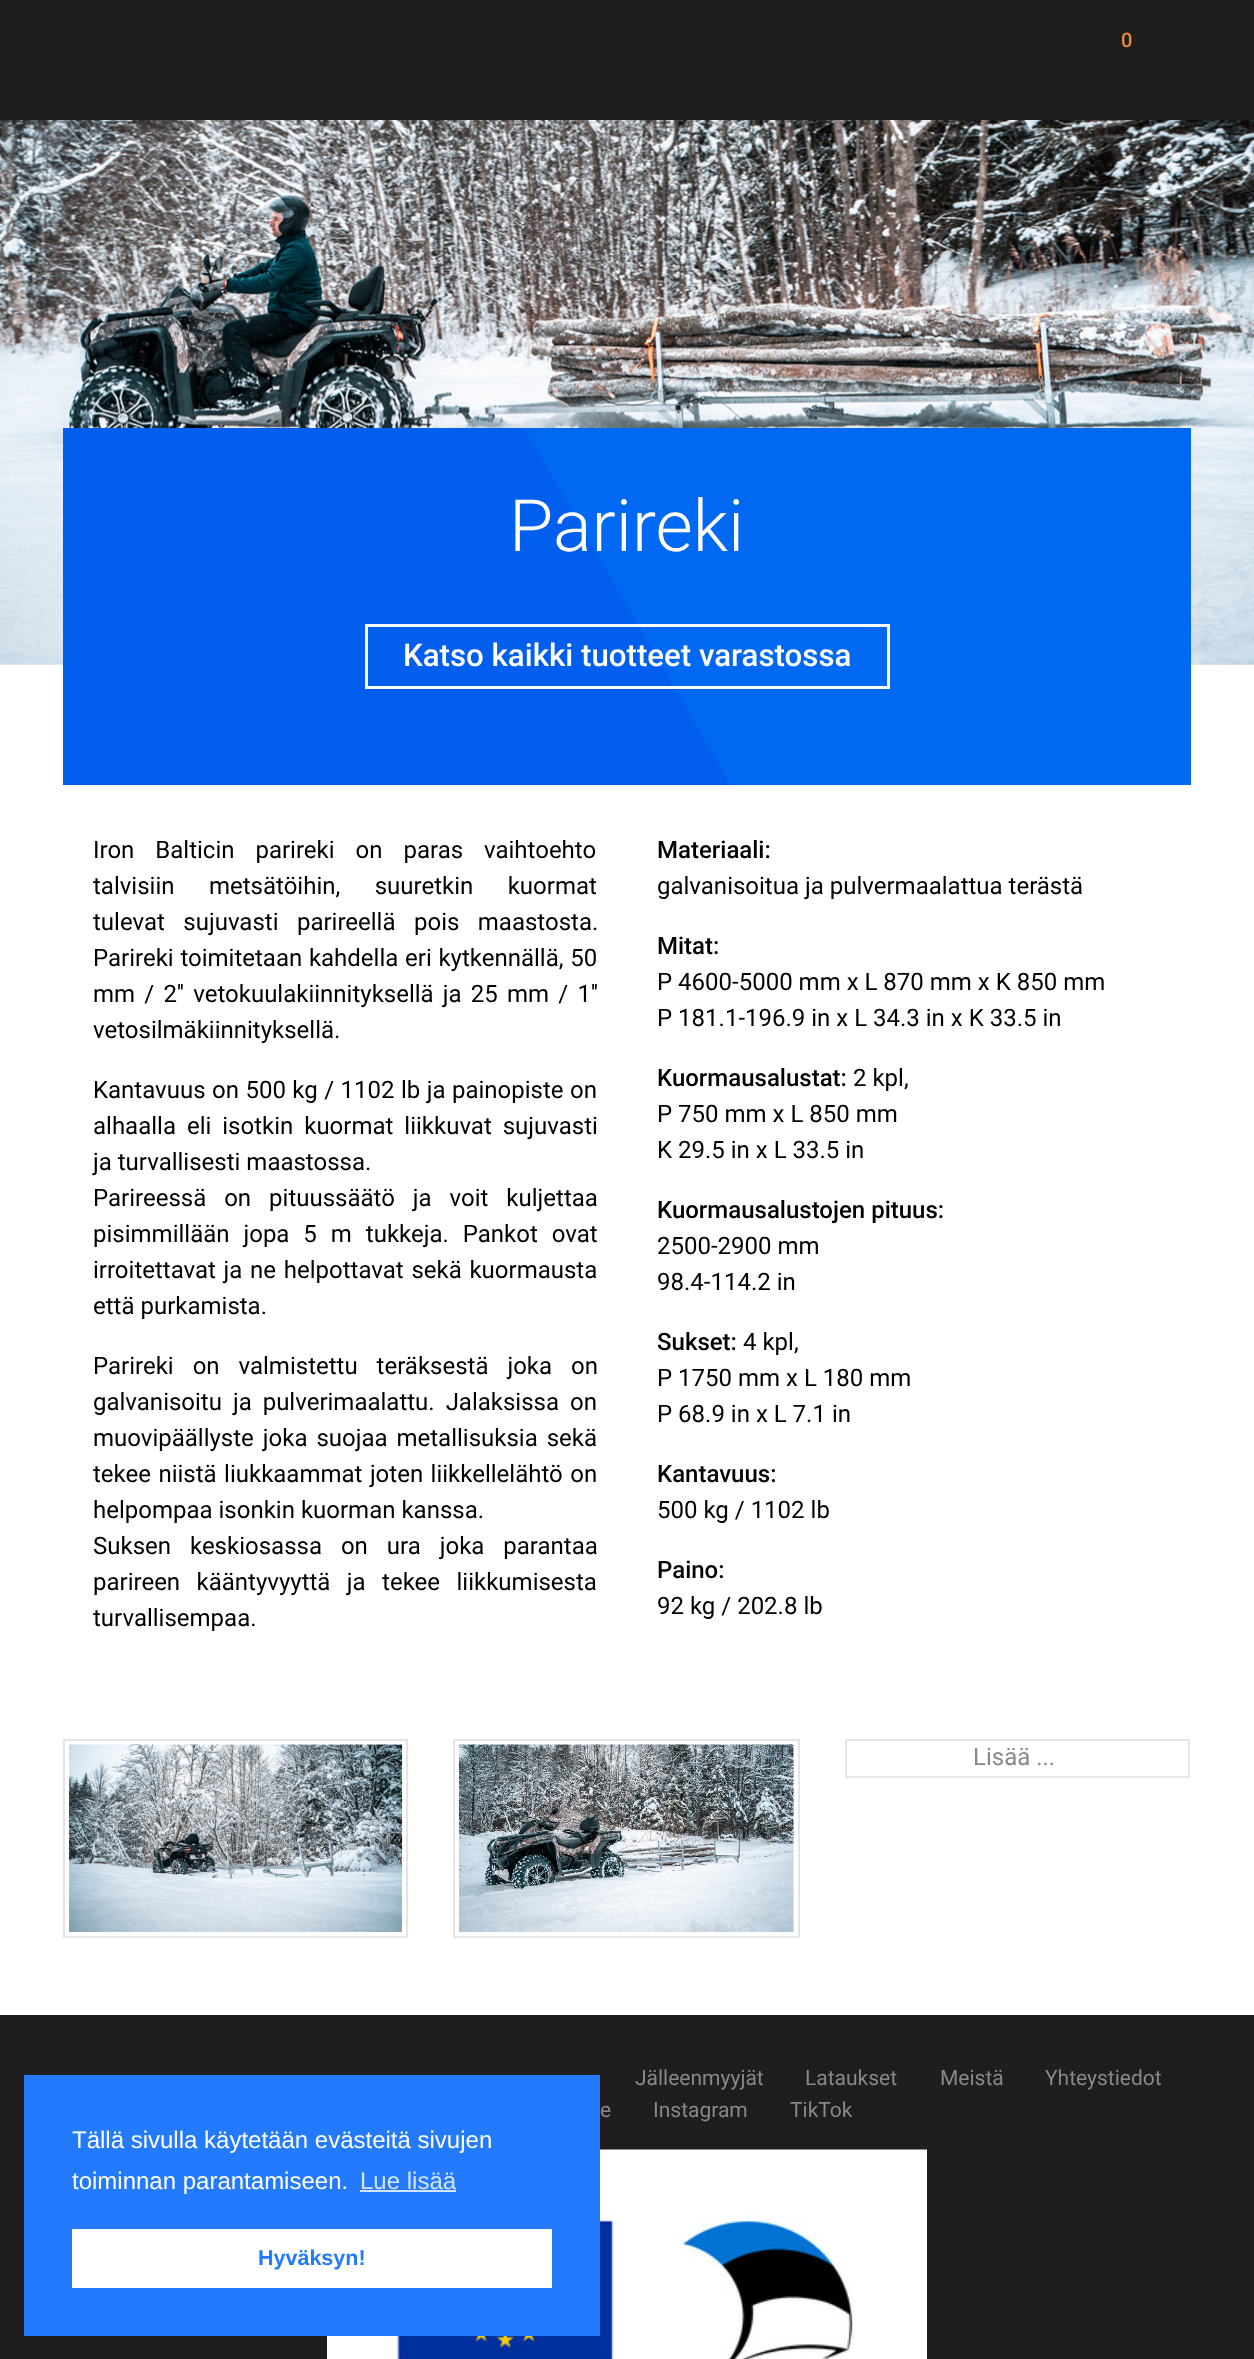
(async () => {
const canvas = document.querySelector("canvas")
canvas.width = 1254
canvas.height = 2359
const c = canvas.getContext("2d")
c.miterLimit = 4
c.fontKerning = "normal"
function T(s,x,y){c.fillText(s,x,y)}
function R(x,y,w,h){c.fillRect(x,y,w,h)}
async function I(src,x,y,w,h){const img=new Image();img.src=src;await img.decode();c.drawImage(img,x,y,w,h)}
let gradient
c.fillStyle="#1e1e1e"
R(0,0,1254,2359)
c.font="500 20px Roboto"
c.fillStyle="#ed893b"
T("0",1121,47)
c.fillStyle="#fff"
R(0,664,1254,1351)
await I("1.png",0,120,1254,545)
gradient = c.createLinearGradient(127,895,1127,317)
gradient.addColorStop(0,"#025fed")
gradient.addColorStop(.5,"#025fed")
gradient.addColorStop(.5,"#0168f2")
gradient.addColorStop(1,"#0168f2")
c.fillStyle = gradient
R(63,428,1128,357)
c.font="300 72px Roboto"
c.fillStyle="#fff"
T("Parireki",509,551)
c.strokeStyle="#fff"
c.lineWidth=3
c.strokeRect(366.5,625.5,522,62)
c.font="500 31.25px Roboto"
T("Katso kaikki tuotteet varastossa",403,666)
c.wordSpacing="15px"
c.font="24px Roboto"
c.fillStyle="#010101"
T("Iron Balticin parireki on paras vaihtoehto",93,858)
c.wordSpacing="28.5px"
T("talvisiin metsätöihin, suuretkin kuormat",93,894)
c.wordSpacing="12.5px"
T("tulevat sujuvasti parireellä pois maastosta.",93,930)
c.wordSpacing="0.75px"
T("Parireki toimitetaan kahdella eri kytkennällä, 50",93,966)
c.wordSpacing="3.25px"
T("mm / 2'' vetokuulakiinnityksellä ja 25 mm / 1''",93,1002)
c.wordSpacing="0px"
T("vetosilmäkiinnityksellä.",93,1038)
c.wordSpacing="0.5px"
T("Kantavuus on 500 kg / 1102 lb ja painopiste on",93,1098)
c.wordSpacing="5px"
T("alhaalla eli isotkin kuormat liikkuvat sujuvasti",93,1134)
c.wordSpacing="0px"
T("ja turvallisesti maastossa.",93,1170)
c.wordSpacing="12px"
T("Parireessä on pituussäätö ja voit kuljettaa",93,1206)
c.wordSpacing="8px"
T("pisimmillään jopa 5 m tukkeja. Pankot ovat",93,1242)
c.wordSpacing="1.75px"
T("irroitettavat ja ne helpottavat sekä kuormausta",93,1278)
c.wordSpacing="0px"
T("että purkamista.",93,1314)
c.wordSpacing="13px"
T("Parireki on valmistettu teräksestä joka on",93,1374)
c.wordSpacing="5px"
T("galvanisoitu ja pulverimaalattu. Jalaksissa on",93,1410)
c.wordSpacing="3px"
T("muovipäällyste joka suojaa metallisuksia sekä",93,1446)
c.wordSpacing="1.5px"
T("tekee niistä liukkaammat joten liikkellelähtö on",93,1482)
c.wordSpacing="0px"
T("helpompaa isonkin kuorman kanssa.",93,1518)
c.wordSpacing="13px"
T("Suksen keskiosassa on ura joka parantaa",93,1554)
c.wordSpacing="10.5px"
T("parireen kääntyvyyttä ja tekee liikkumisesta",93,1590)
c.wordSpacing="0px"
T("turvallisempaa.",93,1626)
c.font="500 24px Roboto"
T("Materiaali:",657,858)
c.font="24px Roboto"
T("galvanisoitua ja pulvermaalattua terästä",657,894)
c.font="500 24px Roboto"
T("Mitat:",657,954)
c.font="24px Roboto"
T("P 4600-5000 mm x L 870 mm x K 850 mm",657,990)
T("P 181.1-196.9 in x L 34.3 in x K 33.5 in",657,1026)
c.font="500 24px Roboto"
T("Kuormausalustat:",657,1086)
c.font="24px Roboto"
T("2 kpl,",853,1086)
T("P 750 mm x L 850 mm",657,1122)
T("K 29.5 in x L 33.5 in",657,1158)
c.font="500 24px Roboto"
T("Kuormausalustojen pituus:",657,1218)
c.font="24px Roboto"
T("2500-2900 mm",657,1254)
T("98.4-114.2 in",657,1290)
c.font="500 24px Roboto"
T("Sukset:",657,1350)
c.font="24px Roboto"
T("4 kpl,",743,1350)
T("P 1750 mm x L 180 mm",657,1386)
T("P 68.9 in x L 7.1 in",657,1422)
c.font="500 24px Roboto"
T("Kantavuus:",657,1482)
c.font="24px Roboto"
T("500 kg / 1102 lb",657,1518)
c.font="500 24px Roboto"
T("Paino:",657,1578)
c.font="24px Roboto"
T("92 kg / 202.8 lb",657,1614)
c.strokeStyle="#e5e5e5"
c.lineWidth=2
c.strokeRect(64,1740,343,197)
await I("2.png",69,1744,334,188)
c.strokeRect(454,1740,345,197)
await I("3.png",459,1744,335,188)
c.strokeRect(846,1740,343,37)
c.fillStyle="#888"
T("Lisää ...",973,1765)
c.font="21px Roboto"
T("Jälleenmyyjät",635,2085)
T("Lataukset",805,2085)
T("Meistä",940,2085)
T("Yhteystiedot",1045,2085)
T("e",600,2117)
T("Instagram",653,2117)
T("TikTok",790,2117)
await I("4.png",327,2149,600,210)
c.fillStyle="#237afc"
R(24,2075,576,261)
c.font="24px Liberation Sans"
c.fillStyle="#fff"
T("Tällä sivulla käytetään evästeitä sivujen",72,2148)
T("toiminnan parantamiseen.",72,2189)
c.fillStyle="#d3e4fe"
T("Lue lisää",360,2189)
R(360,2190,96,2)
c.fillStyle="#fff"
R(72,2229,480,59)
c.font="bold 21.5px Liberation Sans"
c.fillStyle="#237afc"
T("Hyväksyn!",258,2265)
})()
